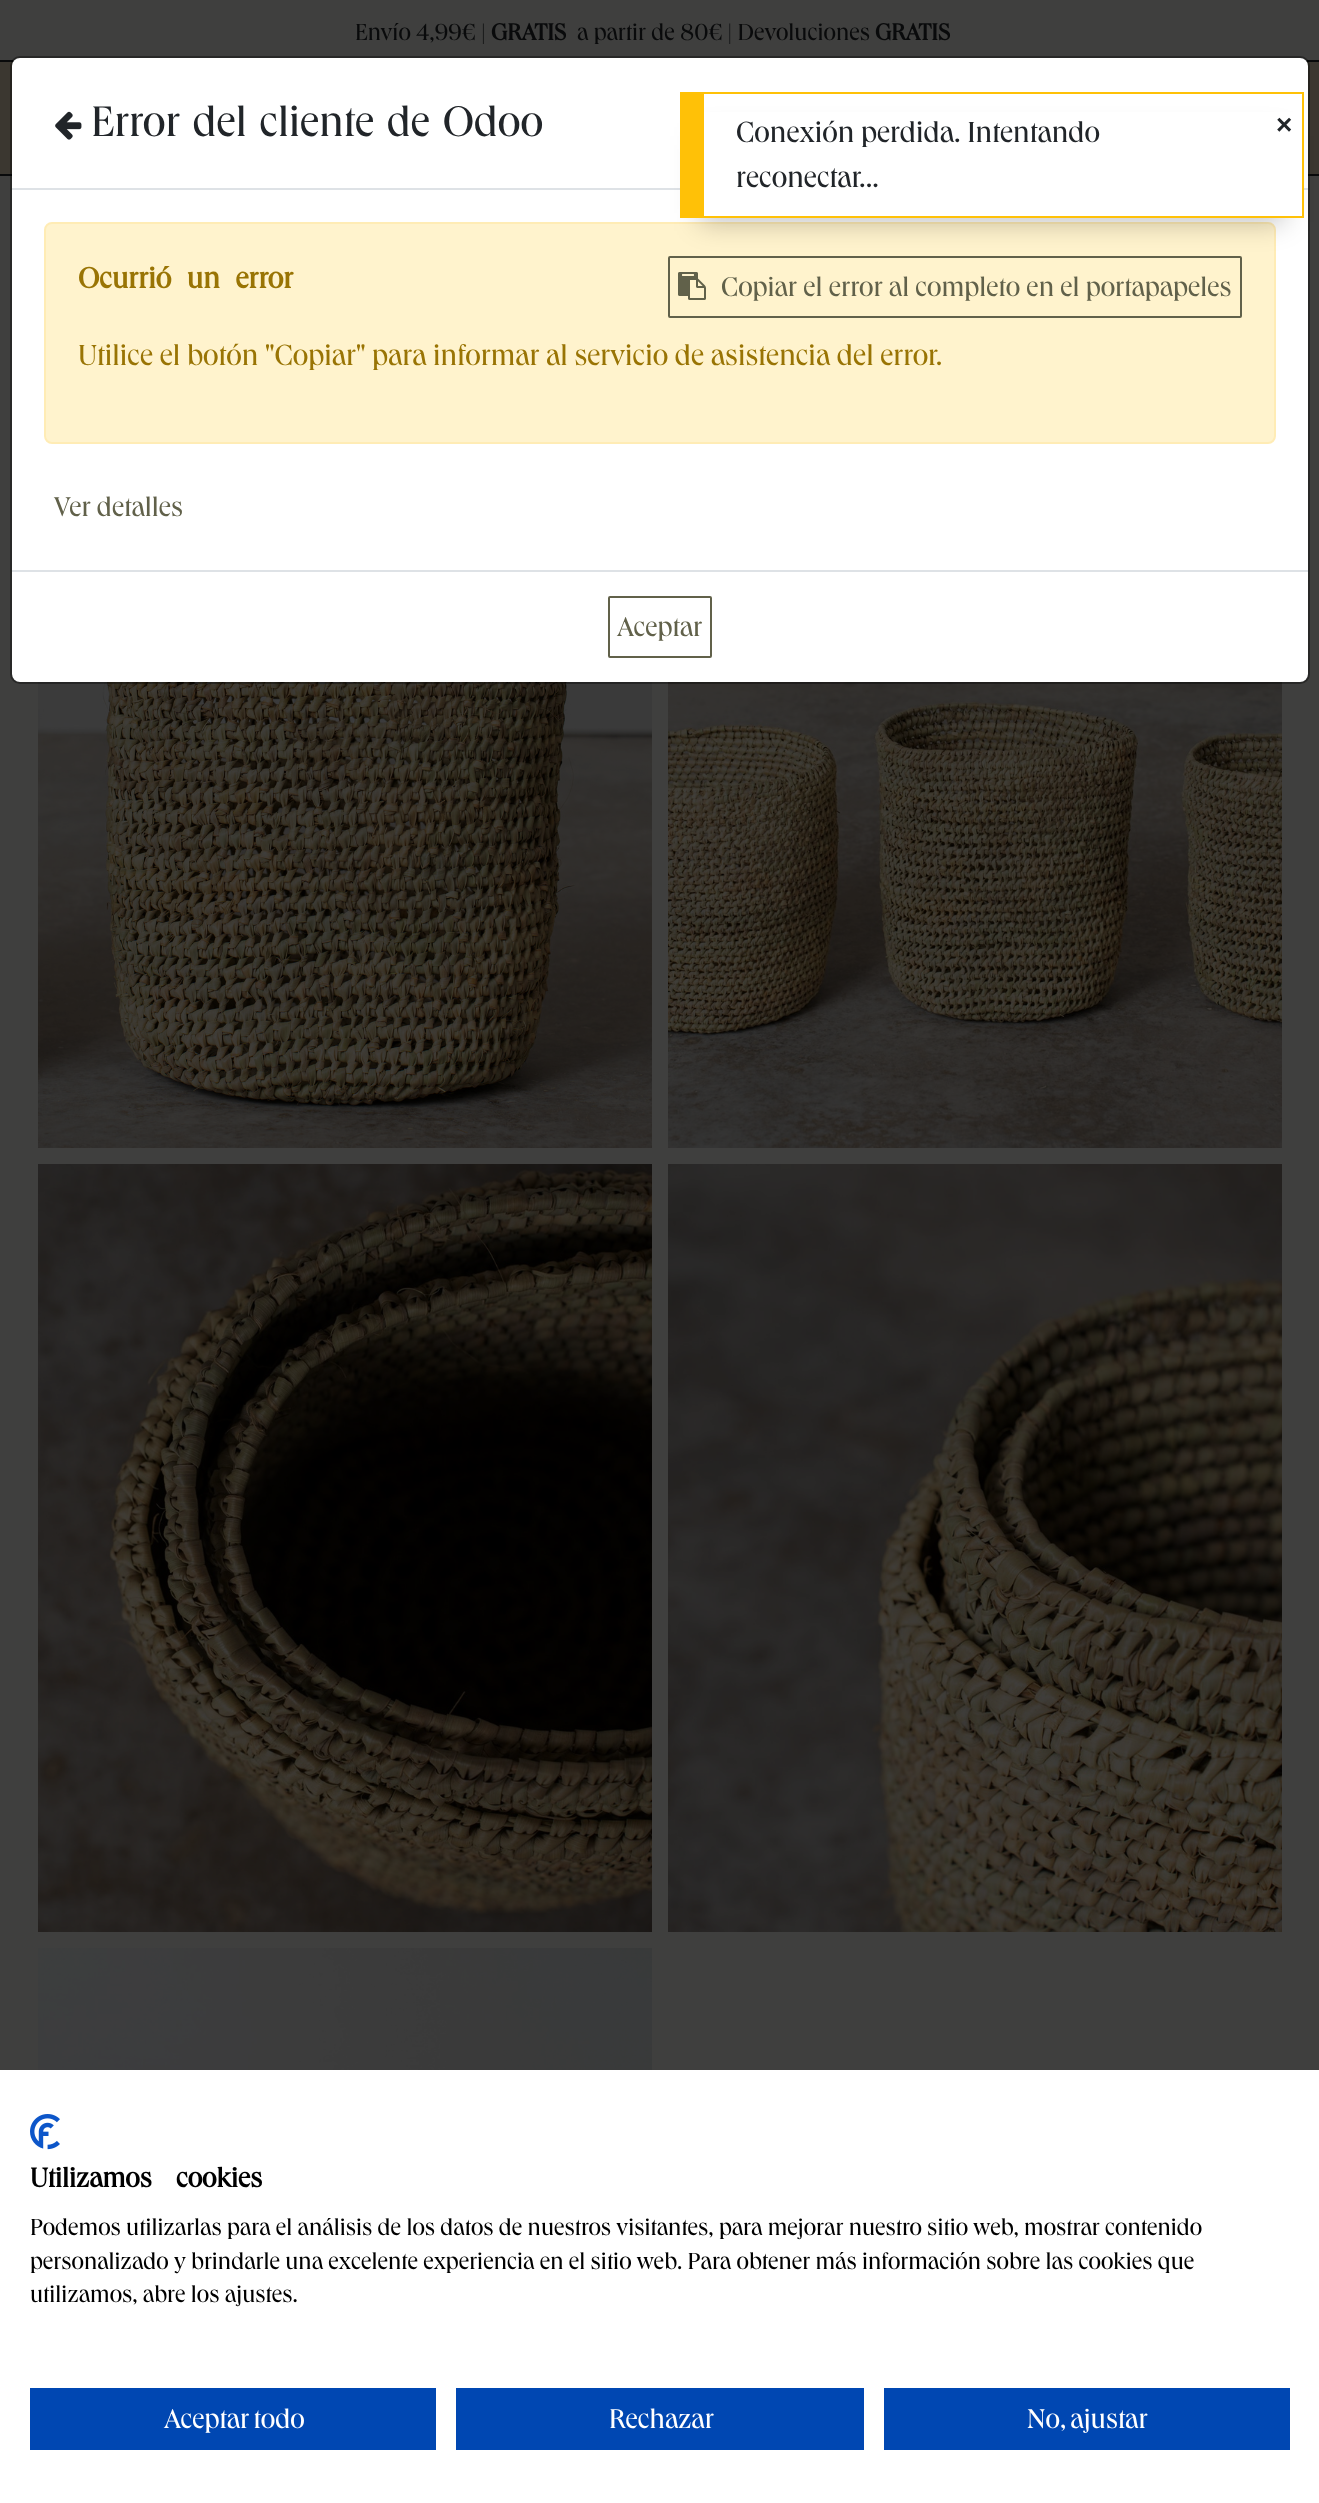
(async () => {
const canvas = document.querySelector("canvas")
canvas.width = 1319
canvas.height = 2503
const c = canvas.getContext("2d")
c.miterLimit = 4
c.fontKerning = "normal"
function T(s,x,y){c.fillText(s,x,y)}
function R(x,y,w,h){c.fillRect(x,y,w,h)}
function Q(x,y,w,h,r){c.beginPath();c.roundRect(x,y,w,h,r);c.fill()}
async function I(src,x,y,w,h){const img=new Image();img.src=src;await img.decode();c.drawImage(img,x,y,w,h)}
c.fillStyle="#3f3f3e"
R(0,0,1319,2503)
c.font="24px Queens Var"
c.fillStyle="#090a0b"
T("Envío 4,99€ |",355,40)
c.font="bold 24px Queens Var"
T("GRATIS",491,40)
c.font="24px Queens Var"
T("a partir de 80€ | Devoluciones",577,40)
c.font="bold 24px Queens Var"
T("GRATIS",875,40)
c.fillStyle="#3b3730"
R(0,62,1319,112)
c.fillStyle="#090a0b"
R(0,60,1319,2)
R(0,174,1319,2)
await I("1.png",38,682,614,466)
await I("2.png",668,682,614,466)
await I("3.png",38,1164,614,768)
await I("4.png",668,1164,614,768)
await I("5.png",38,1948,614,122)
c.beginPath()
c.roundRect(11,57,1298,626,9)
c.strokeStyle="#00000033"
c.lineWidth=2
c.stroke()
c.fillStyle="#fff"
Q(12,58,1296,624,8)
c.beginPath()
c.roundRect(11,57,1298,626,9)
c.stroke()
c.fillStyle="#dee2e6"
R(12,188,1296,2)
await I("6.png",55,111,27,29)
c.wordSpacing="3px"
c.font="44px Queens Var"
c.fillStyle="#212529"
T("Error del cliente de Odoo",91,136)
c.fillStyle="#fff3cd"
c.beginPath()
c.roundRect(45,223,1230,220,7)
c.fill()
c.strokeStyle="#ffecb5"
c.stroke()
c.wordSpacing="9px"
c.font="bold 30px Queens Var"
c.fillStyle="#997404"
T("Ocurrió un error",78,288)
c.beginPath()
c.roundRect(669,257,572,60,1)
c.strokeStyle="#61614a"
c.stroke()
await I("7.png",678,272,28,28)
c.wordSpacing="0px"
c.font="28px Queens Var"
c.fillStyle="#61614a"
T("Copiar el error al completo en el portapapeles",721,296)
c.font="30px Queens Var"
c.fillStyle="#997404"
T("Utilice el botón \"Copiar\" para informar al servicio de asistencia del error.",78,365)
c.font="28px Queens Var"
c.fillStyle="#61614a"
T("Ver detalles",54,516)
c.fillStyle="#dee2e6"
R(12,570,1296,2)
c.beginPath()
c.roundRect(609,597,102,60,1)
c.stroke()
c.fillStyle="#61614a"
T("Aceptar",617,636)
c.fillStyle="#00000040"
c.filter="blur(14px)"
c.beginPath()
c.rect(700,136,584,86)
c.fill()
c.filter="none"
c.fillStyle="#fff"
R(704,112,598,104)
c.fillStyle="#ffc107"
R(704,92,600,2)
R(1302,92,2,126)
R(704,216,600,2)
R(680,92,24,126)
c.font="30px Queens Var"
c.fillStyle="#212529"
T("Conexión perdida. Intentando",736,142)
T("reconectar...",736,187)
c.font="bold 28px Liberation Sans"
T("×",1276,134)
c.fillStyle="#fff"
R(0,2070,1319,433)
await I("8.png",30,2114,30,36)
c.wordSpacing="18px"
c.font="bold 28px Queens Var"
c.fillStyle="#000"
T("Utilizamos cookies",30,2187)
c.wordSpacing="0px"
c.font="24px Queens Var"
T("Podemos utilizarlas para el análisis de los datos de nuestros visitantes, para mejorar nuestro sitio web, mostrar contenido",30,2235)
T("personalizado y brindarle una excelente experiencia en el sitio web. Para obtener más información sobre las cookies que",30,2269)
T("utilizamos, abre los ajustes.",30,2302)
c.fillStyle="#0047b2"
R(30,2388,406,62)
c.wordSpacing="-2px"
c.font="28px Queens Var"
c.fillStyle="#fff"
T("Aceptar todo",164,2428)
c.fillStyle="#0047b2"
R(456,2388,408,62)
c.wordSpacing="0px"
c.fillStyle="#fff"
T("Rechazar",609,2428)
c.fillStyle="#0047b2"
R(884,2388,406,62)
c.wordSpacing="-2px"
c.fillStyle="#fff"
T("No, ajustar",1027,2428)
})()
